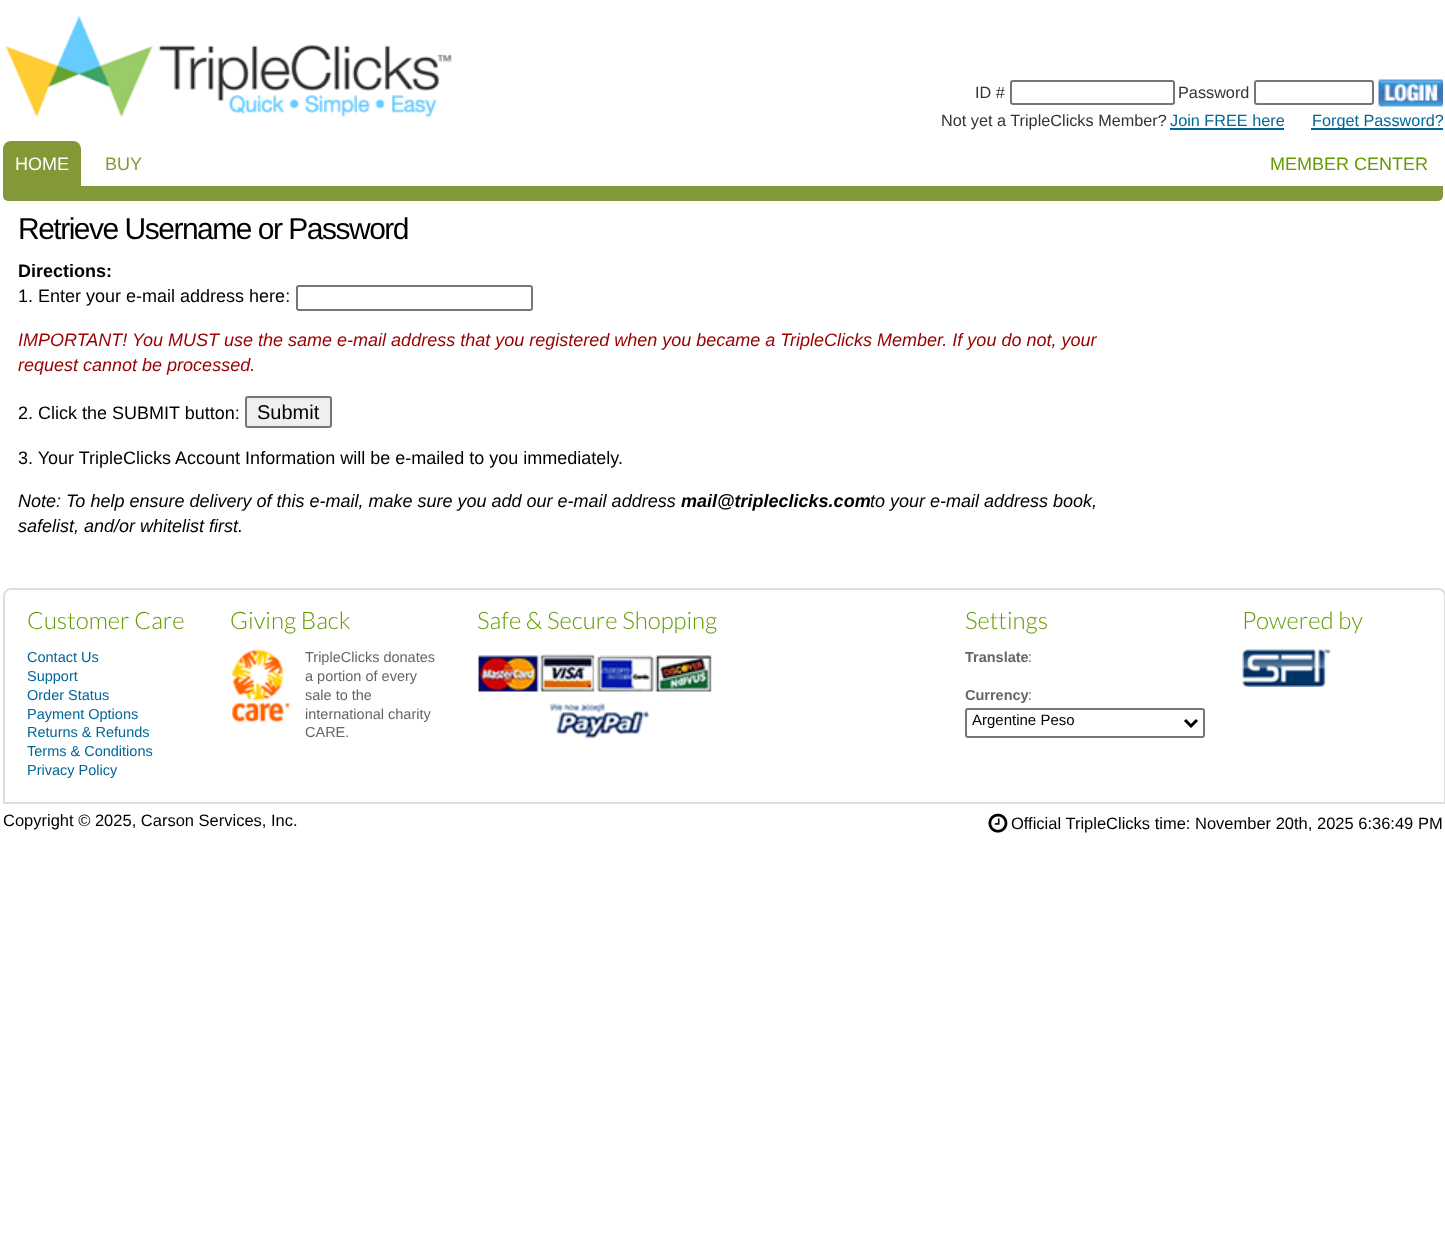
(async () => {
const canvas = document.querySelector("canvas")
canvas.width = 1445
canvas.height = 1248
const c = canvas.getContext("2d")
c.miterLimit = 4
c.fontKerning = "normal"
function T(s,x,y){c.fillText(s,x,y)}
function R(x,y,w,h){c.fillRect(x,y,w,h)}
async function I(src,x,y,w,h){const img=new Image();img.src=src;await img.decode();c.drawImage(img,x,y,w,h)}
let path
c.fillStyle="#fff"
R(0,0,1445,1248)
await I("1.png",5,16,447,102)
c.font="16.25px Liberation Sans"
c.fillStyle="#333"
T("ID #",975,98)
c.beginPath()
c.roundRect(1011,81,163,23,2)
c.strokeStyle="#767676"
c.lineWidth=2
c.stroke()
T("Password",1178,98)
c.beginPath()
c.roundRect(1255,81,118,23,2)
c.stroke()
await I("2.png",1378,79,65,28)
T("Not yet a TripleClicks Member?",941,126)
c.fillStyle="#069"
T("Join FREE here",1170,126)
R(1170,128,114,2)
R(1311,128,132,2)
T("Forget Password?",1312,126)
c.fillStyle="#839937"
c.beginPath()
c.roundRect(3,141,78,45,[8,8,0,0])
c.fill()
c.font="18px Liberation Sans"
c.fillStyle="#fff"
T("HOME",15,170)
c.fillStyle="#839937"
T("BUY",105,170)
c.fillStyle="#690"
T("MEMBER CENTER",1270,170)
c.fillStyle="#839937"
c.beginPath()
c.roundRect(3,186,1440,15,[0,0,5,5])
c.fill()
c.letterSpacing="-1.5px"
c.font="30px Liberation Sans"
c.fillStyle="#000"
T("Retrieve Username or Password",18,239)
c.letterSpacing="0px"
c.font="bold 18px Liberation Sans"
T("Directions:",18,277)
c.font="18px Liberation Sans"
T("1. Enter your e-mail address here:",18,302)
c.beginPath()
c.roundRect(297,286,235,24,2)
c.stroke()
c.font="italic 18px Liberation Sans"
c.fillStyle="#900"
T("IMPORTANT! You MUST use the same e-mail address that you registered when you became a TripleClicks Member. If you do not, your",18,346)
T("request cannot be processed.",18,371)
c.font="18px Liberation Sans"
c.fillStyle="#000"
T("2. Click the SUBMIT button:",18,419)
c.fillStyle="#efefef"
c.beginPath()
c.roundRect(246,397,85,30,2)
c.fill()
c.stroke()
c.font="20px Liberation Sans"
c.fillStyle="#000"
T("Submit",257,419)
c.font="18px Liberation Sans"
T("3. Your TripleClicks Account Information will be e-mailed to you immediately.",18,464)
c.font="italic 18px Liberation Sans"
T("Note: To help ensure delivery of this e-mail, make sure you add our e-mail address",18,507)
c.font="italic bold 18px Liberation Sans"
T("mail@tripleclicks.com",681,507)
c.font="italic 18px Liberation Sans"
T("to your e-mail address book,",870,507)
T("safelist, and/or whitelist first.",18,532)
path = new Path2D("M11 589h1427c4 0 7 3 7 7v207h-1441v-207c0-4 3-7 7-7z")
c.strokeStyle="#dedede"
c.stroke(path)
c.font="300 24px Lato"
c.fillStyle="#690"
T("Customer Care",27,629)
c.font="14.5px Liberation Sans"
c.fillStyle="#069"
T("Contact Us",27,662)
T("Support",27,681)
T("Order Status",27,700)
T("Payment Options",27,719)
T("Returns & Refunds",27,737)
T("Terms & Conditions",27,756)
T("Privacy Policy",27,775)
c.font="300 24px Lato"
c.fillStyle="#690"
T("Giving Back",230,629)
await I("3.png",231,649,59,73)
c.font="14.5px Liberation Sans"
c.fillStyle="#666"
T("TripleClicks donates",305,662)
T("a portion of every",305,681)
T("sale to the",305,700)
T("international charity",305,719)
T("CARE.",305,737)
c.font="300 24px Lato"
c.fillStyle="#690"
T("Safe & Secure Shopping",477,629)
await I("4.png",478,654,234,85)
T("Settings",965,629)
c.font="bold 14.5px Liberation Sans"
c.fillStyle="#666"
T("Translate",965,662)
c.font="14.5px Liberation Sans"
T(":",1028,662)
c.font="bold 14.5px Liberation Sans"
T("Currency",965,700)
c.font="14.5px Liberation Sans"
T(":",1028,700)
c.beginPath()
c.roundRect(966,709,238,28,2)
c.strokeStyle="#767676"
c.stroke()
path = new Path2D("M1185 720l6 6l6-6")
c.strokeStyle="#000"
c.lineWidth=3
c.stroke(path)
c.font="15px Liberation Sans"
c.fillStyle="#000"
T("Argentine Peso",972,725)
c.font="300 24px Lato"
c.fillStyle="#690"
T("Powered by",1242,629)
await I("5.png",1242,649,89,38)
c.font="16.5px Liberation Sans"
c.fillStyle="#000"
T("Copyright © 2025, Carson Services, Inc.",3,826)
await I("6.png",988,813,20,20)
T("Official TripleClicks time: November 20th, 2025 6:36:49 PM",1011,829)
})()
